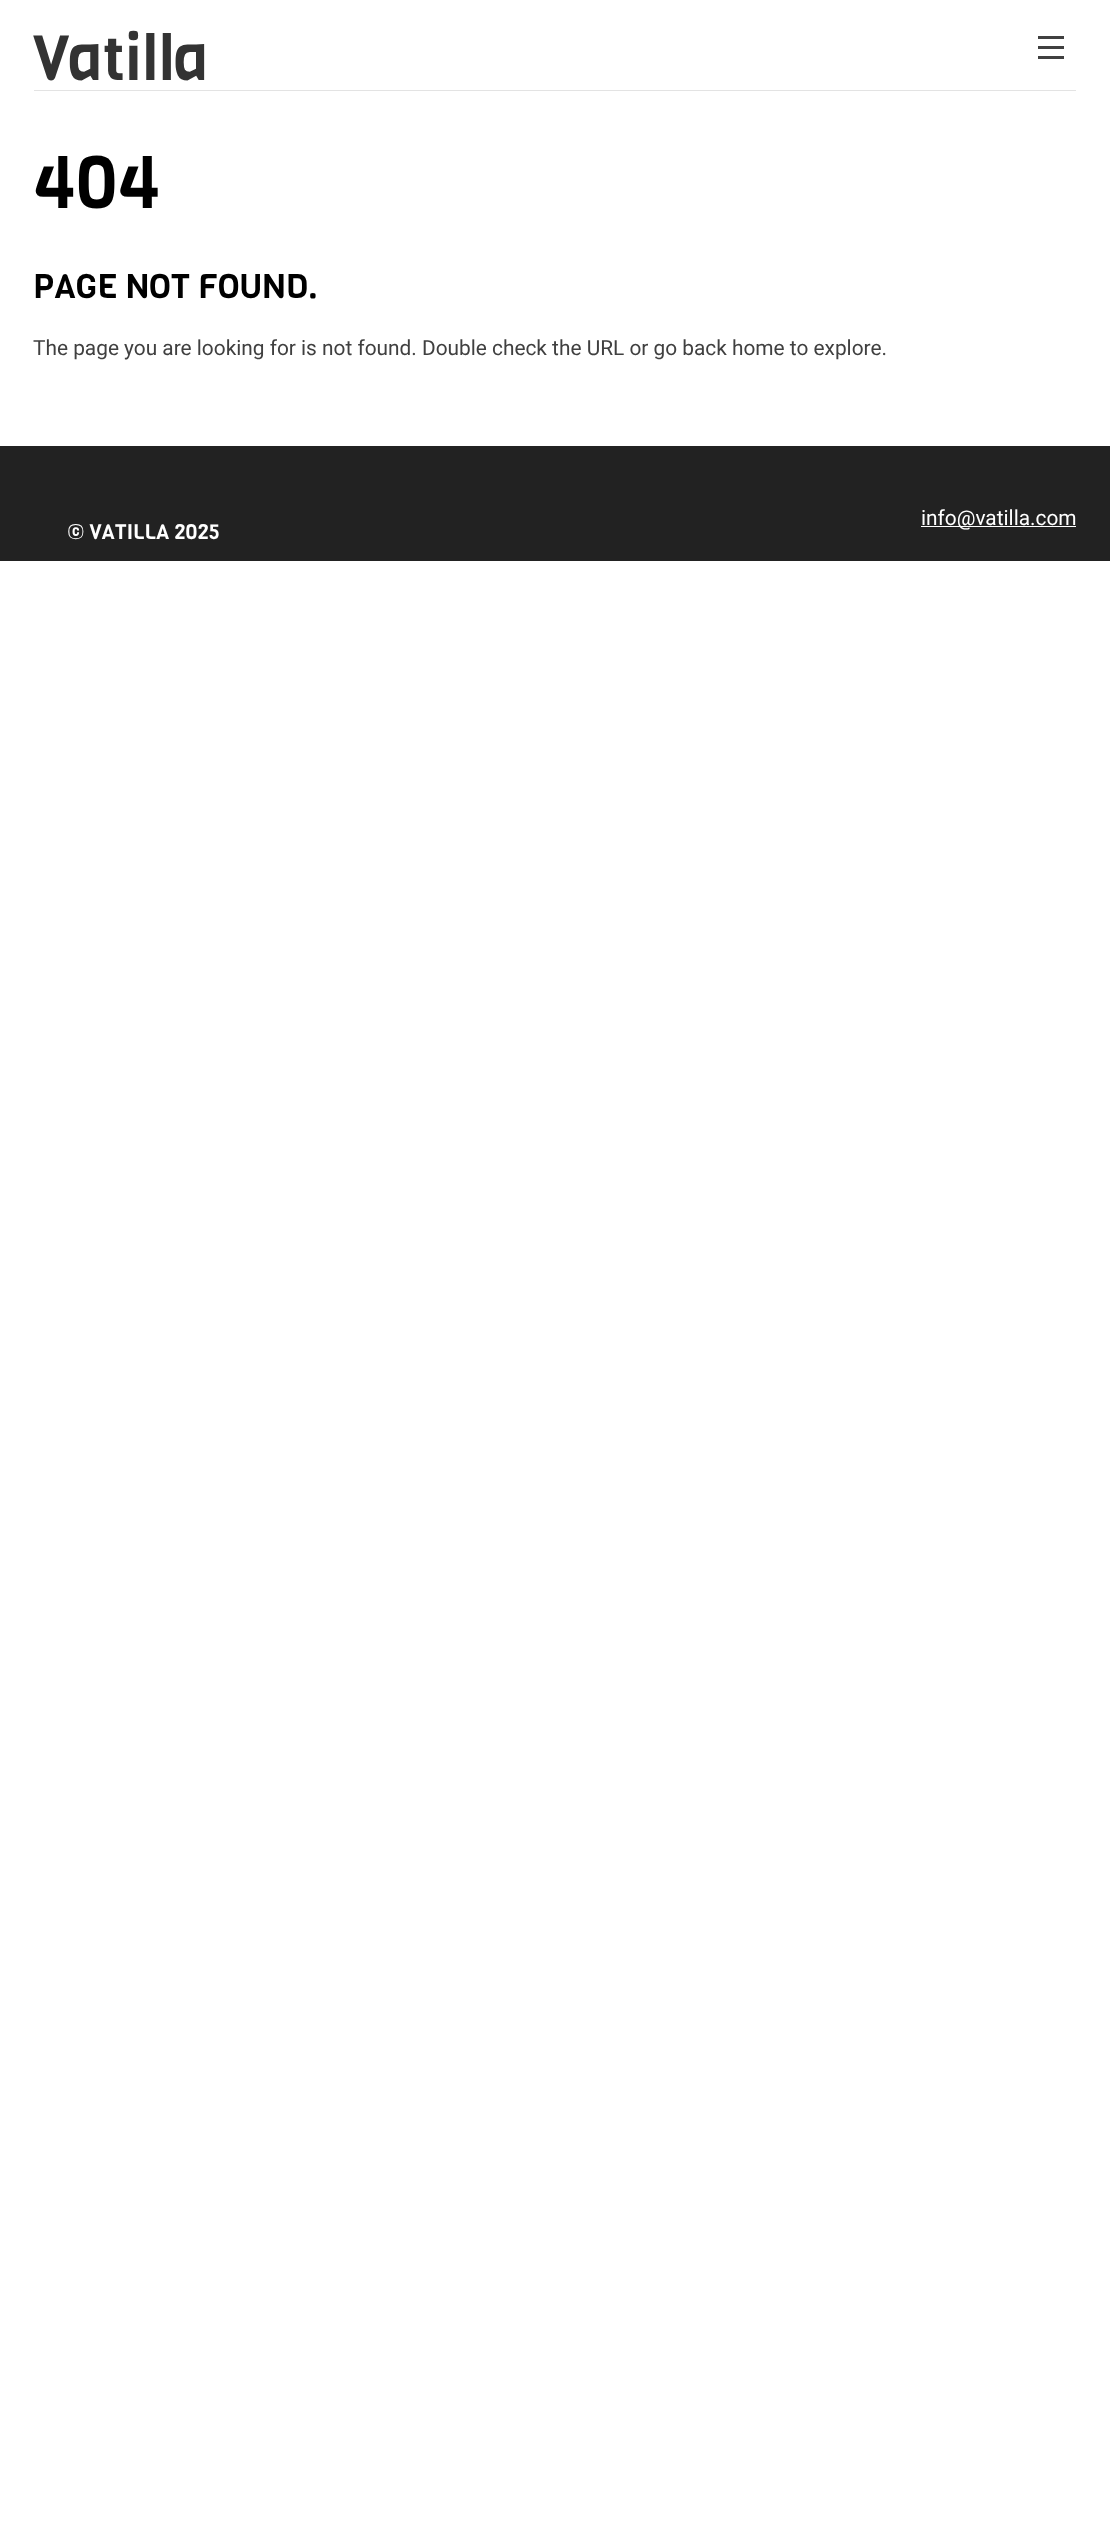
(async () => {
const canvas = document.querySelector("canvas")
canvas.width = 1110
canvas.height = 2523
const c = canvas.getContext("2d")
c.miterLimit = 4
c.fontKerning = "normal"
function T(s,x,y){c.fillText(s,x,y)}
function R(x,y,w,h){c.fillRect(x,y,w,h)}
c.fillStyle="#fff"
R(0,0,1110,2523)
c.fillStyle="#e3e3e3"
R(34,90,1042,1)
c.font="62.5px Viga"
c.fillStyle="#333"
T("Vatilla",33,80)
c.fillStyle="#404040"
R(1038,56,26,3)
R(1038,36,26,3)
R(1038,46,26,3)
c.font="73px Viga"
c.fillStyle="#000"
T("404",33,208)
c.font="33.75px Viga"
T("PAGE NOT FOUND.",33,298)
c.font="20.85px Roboto"
c.fillStyle="#404040"
T("The page you are looking for is not found. Double check the URL or go back home to explore.",33,355)
c.fillStyle="#222"
R(0,446,1110,115)
c.fillStyle="#fff"
R(921,526,155,1)
T("info@vatilla.com",921,525)
c.font="20.85px Viga"
T("© VATILLA 2025",67,539)
})()
